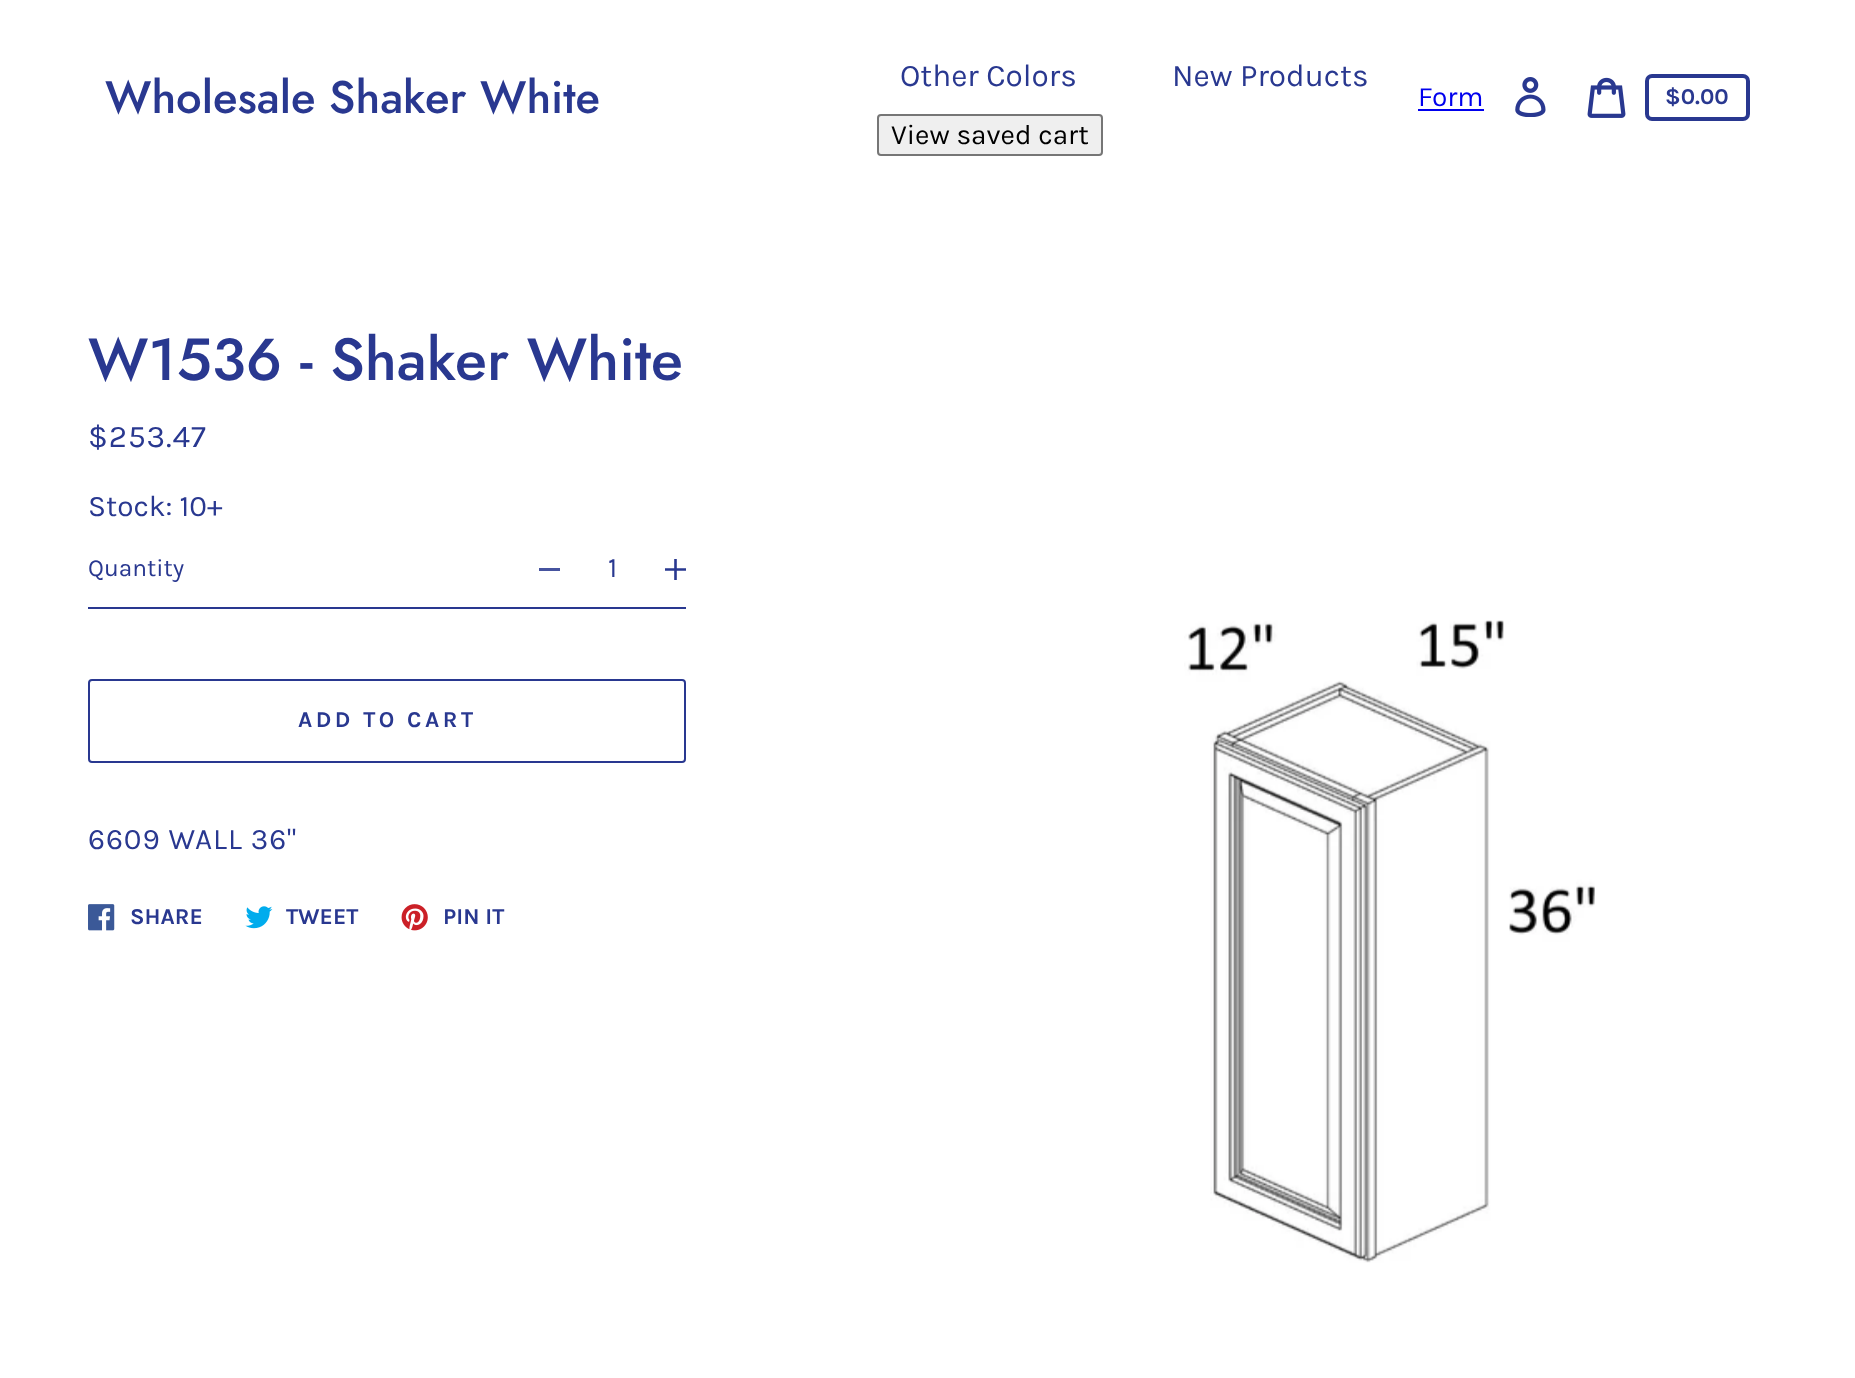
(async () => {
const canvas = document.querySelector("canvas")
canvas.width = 1855
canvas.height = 1378
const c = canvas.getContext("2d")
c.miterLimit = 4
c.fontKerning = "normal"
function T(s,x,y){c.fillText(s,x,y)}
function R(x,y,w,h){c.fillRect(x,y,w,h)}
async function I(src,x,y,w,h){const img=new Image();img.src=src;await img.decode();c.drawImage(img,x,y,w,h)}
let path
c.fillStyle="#fff"
R(0,0,1855,1378)
c.font="500 45.5px Jost"
c.fillStyle="#293890"
T("Wholesale Shaker White",105,113)
c.font="31.5px Karla"
T("Other Colors",900,86)
T("New Products",1172,86)
c.fillStyle="#efefef"
c.beginPath()
c.roundRect(878,115,224,40,3)
c.fill()
c.strokeStyle="#767676"
c.lineWidth=2
c.stroke()
c.font="28px Karla"
c.fillStyle="#000"
T("View saved cart",891,144)
c.fillStyle="#00e"
T("Form",1418,106)
R(1418,109,66,2)
await I("1.png",1515,77,31,40)
await I("2.png",1587,77,39,41)
c.beginPath()
c.roundRect(1647,76,101,43,5)
c.strokeStyle="#293890"
c.lineWidth=4
c.stroke()
c.font="bold 22.75px Karla"
c.fillStyle="#293890"
T("$0.00",1665,104)
c.font="500 59.2px Jost"
T("W1536 - Shaker White",88,380)
c.letterSpacing="0.9px"
c.font="31.5px Karla"
T("$253.47",88,447)
c.letterSpacing="0px"
c.font="29.75px Karla"
T("Stock: 10+",88,516)
R(88,607,598,2)
c.font="24.5px Karla"
T("Quantity",88,576)
c.fillStyle="#46539f"
R(539,568,21,3)
c.font="28px Karla"
c.fillStyle="#293890"
T("1",608,577)
path = new Path2D("M665 569.5h21m-10.5-10.5v21")
c.lineWidth=2.6
c.stroke(path)
c.beginPath()
c.roundRect(89,680,596,82,3)
c.lineWidth=2
c.stroke()
c.letterSpacing="3.5px"
c.font="bold 22.75px Karla"
T("ADD TO CART",298,727)
c.letterSpacing="0.9px"
c.font="29.75px Karla"
T("6609 WALL 36\"",88,849)
await I("3.png",88,904,27,27)
c.letterSpacing="0px"
c.font="bold 22.75px Karla"
T("SHARE",130,924)
await I("4.png",245,906,28,23)
T("TWEET",286,924)
await I("5.png",401,904,27,27)
T("PIN IT",443,924)
await I("6.png",1184,620,411,643)
})()
